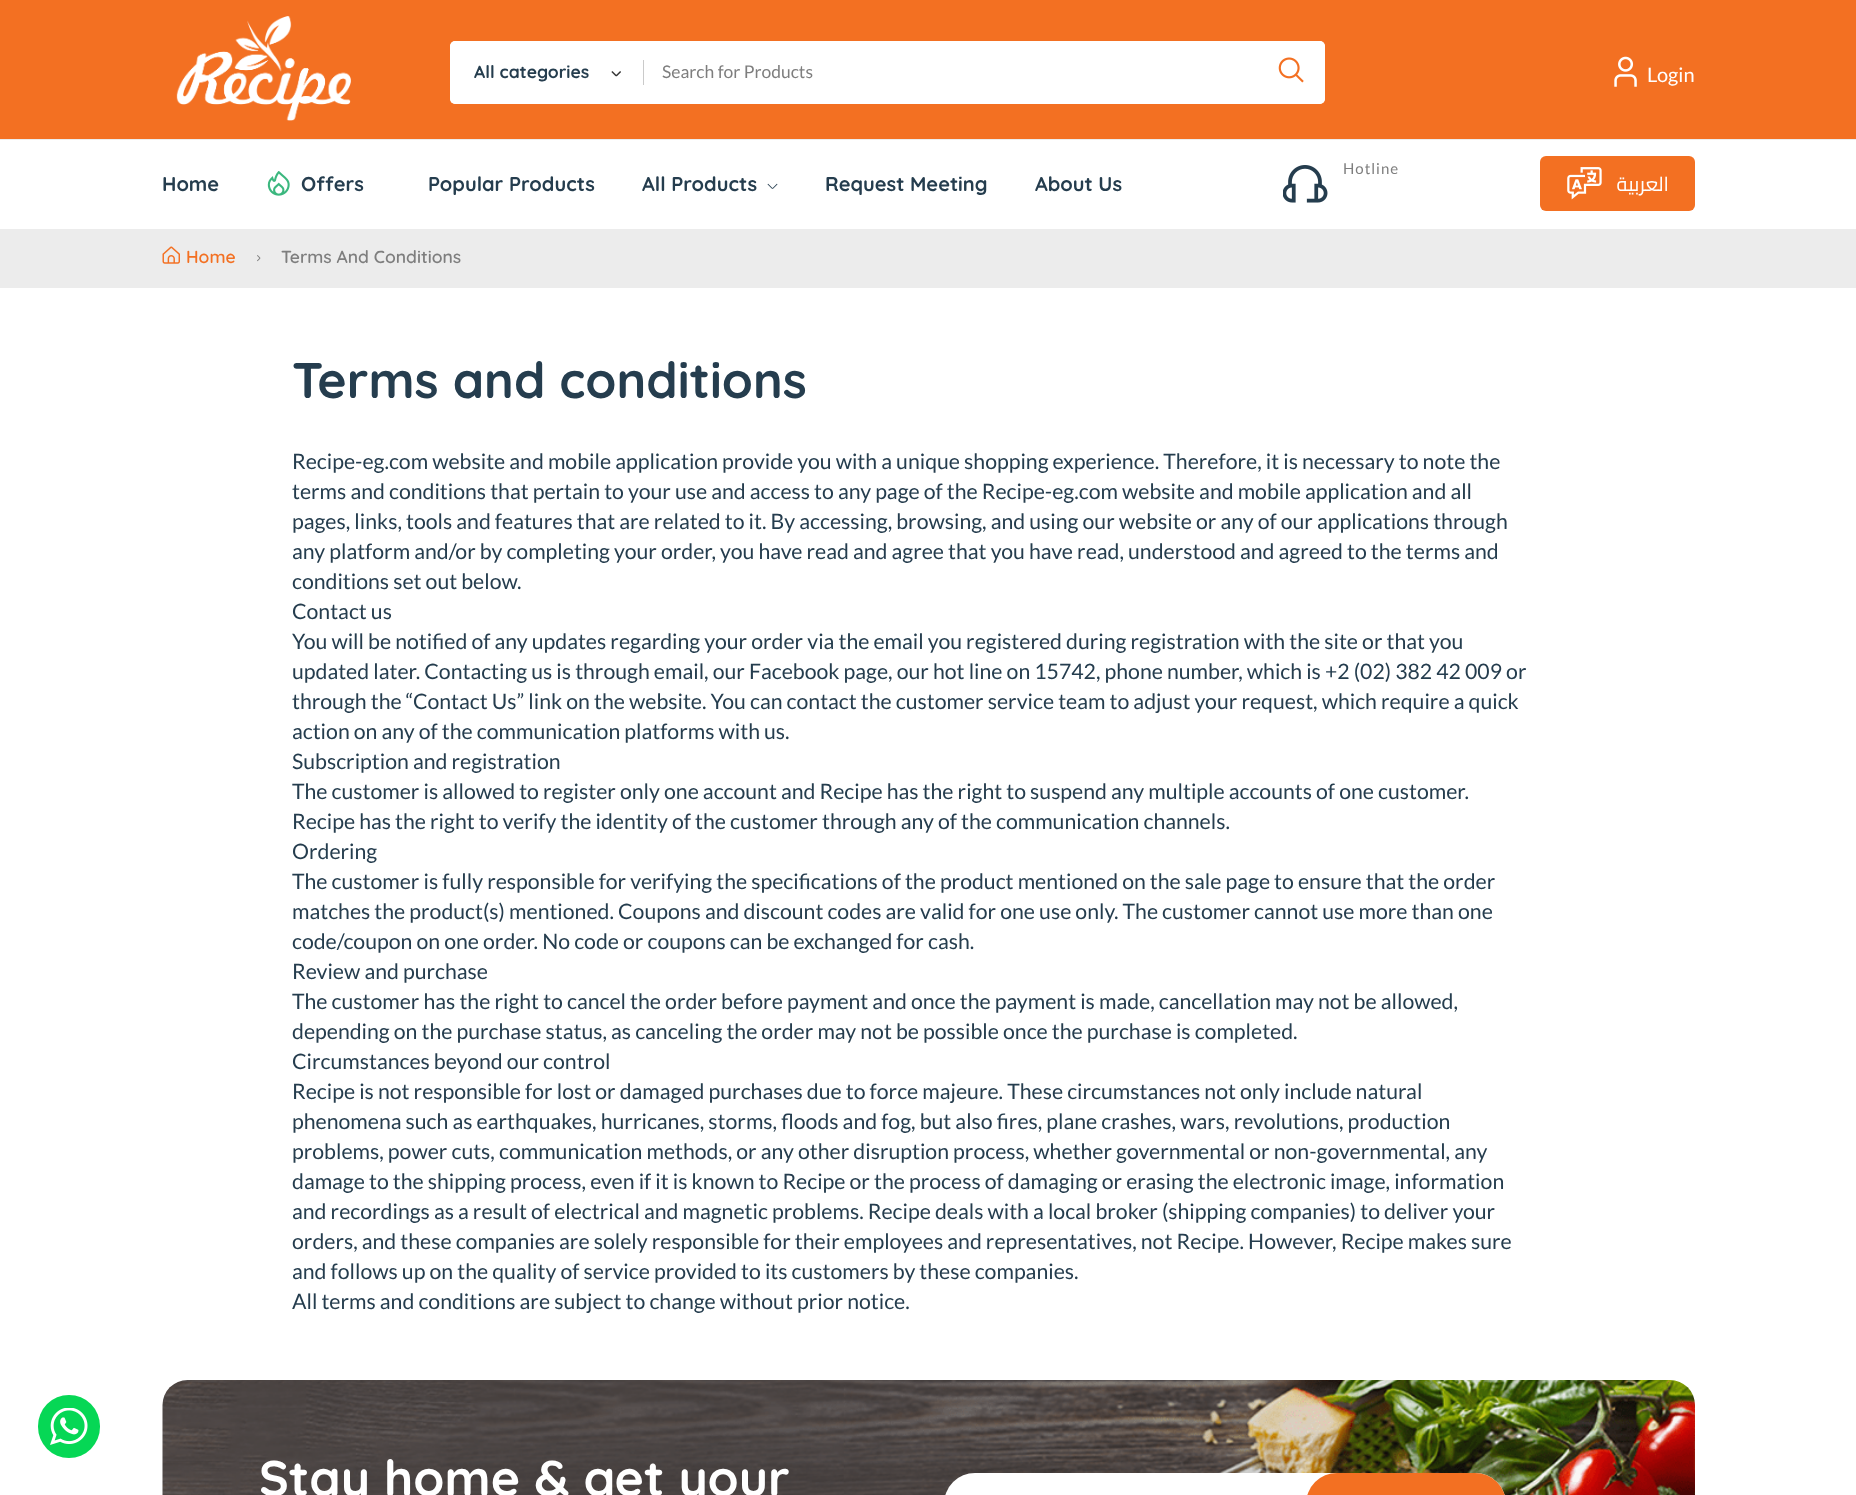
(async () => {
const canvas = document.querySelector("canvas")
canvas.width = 1856
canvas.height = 1495
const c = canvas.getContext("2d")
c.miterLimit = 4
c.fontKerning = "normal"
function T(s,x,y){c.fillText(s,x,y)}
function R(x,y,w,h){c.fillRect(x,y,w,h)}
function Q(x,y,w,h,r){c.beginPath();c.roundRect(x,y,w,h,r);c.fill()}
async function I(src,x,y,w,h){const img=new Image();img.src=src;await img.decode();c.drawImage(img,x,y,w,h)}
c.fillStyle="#fff"
R(0,0,1856,1495)
c.fillStyle="#f37022"
R(0,0,1856,139)
await I("1.png",176,16,175,105)
c.fillStyle="#fff"
Q(450,41,875,63,5)
c.beginPath()
c.roundRect(450,41,194,63,[6,0,0,6])
c.fill()
c.font="bold 17.5px Quicksand"
c.fillStyle="#253d4e"
T("All categories",474,78)
c.fillStyle="#cacaca"
R(643,60,1,25)
await I("2.png",611,71,10,6)
c.fillStyle="#fff"
c.beginPath()
c.roundRect(663,41,662,63,[0,6,6,0])
c.fill()
c.font="17.5px Lato"
c.fillStyle="#7e7e7e"
T("Search for Products",662,78)
await I("3.png",1278,57,26,26)
await I("4.png",1614,56,23,31)
c.font="20px Lato"
c.fillStyle="#fff"
T("Login",1647,82)
c.fillStyle="#ececec"
R(0,139,1856,1)
await I("5.png",1283,165,45,38)
c.letterSpacing="1px"
c.font="15px Lato"
c.fillStyle="#7e7e7e"
T("Hotline",1343,174)
c.letterSpacing="0px"
c.font="bold 20px Quicksand"
c.fillStyle="#253d4e"
T("Home",162,191)
await I("6.png",267,171,23,25)
T("Offers",301,191)
T("Popular Products",428,191)
T("All Products",642,191)
await I("7.png",767,183,11,6)
T("Request Meeting",825,191)
T("About Us",1035,191)
c.fillStyle="#f37022"
Q(1540,156,155,55,6)
await I("8.png",1567,167,35,33)
c.direction="rtl"
c.font="20px Cairo"
c.fillStyle="#fff"
T("العربية",1669,191)
c.fillStyle="#06d755"
Q(38,1395,62,63,31)
await I("9.png",50,1408,38,37)
c.fillStyle="#ececec"
R(0,229,1856,59)
await I("10.png",162,246,18,18)
c.direction="ltr"
c.font="600 17.5px Quicksand"
c.fillStyle="#f37022"
T("Home",186,263)
await I("11.png",257,255,4,7)
c.fillStyle="#7e7e7e"
T("Terms And Conditions",281,263)
c.font="bold 50px Quicksand"
c.fillStyle="#253d4e"
T("Terms and conditions",292,398)
c.font="21.25px Lato"
T("Recipe-eg.com website and mobile application provide you with a unique shopping experience. Therefore, it is necessary to note the",292,469)
T("terms and conditions that pertain to your use and access to any page of the Recipe-eg.com website and mobile application and all",292,499)
T("pages, links, tools and features that are related to it. By accessing, browsing, and using our website or any of our applications through",292,529)
T("any platform and/or by completing your order, you have read and agree that you have read, understood and agreed to the terms and",292,559)
T("conditions set out below.",292,589)
T("Contact us",292,619)
T("You will be notified of any updates regarding your order via the email you registered during registration with the site or that you",292,649)
T("updated later. Contacting us is through email, our Facebook page, our hot line on 15742, phone number, which is +2 (02) 382 42 009 or",292,679)
T("through the “Contact Us” link on the website. You can contact the customer service team to adjust your request, which require a quick",292,709)
T("action on any of the communication platforms with us.",292,739)
T("Subscription and registration",292,769)
T("The customer is allowed to register only one account and Recipe has the right to suspend any multiple accounts of one customer.",292,799)
T("Recipe has the right to verify the identity of the customer through any of the communication channels.",292,829)
T("Ordering",292,859)
T("The customer is fully responsible for verifying the specifications of the product mentioned on the sale page to ensure that the order",292,889)
T("matches the product(s) mentioned. Coupons and discount codes are valid for one use only. The customer cannot use more than one",292,919)
T("code/coupon on one order. No code or coupons can be exchanged for cash.",292,949)
T("Review and purchase",292,979)
T("The customer has the right to cancel the order before payment and once the payment is made, cancellation may not be allowed,",292,1009)
T("depending on the purchase status, as canceling the order may not be possible once the purchase is completed.",292,1039)
T("Circumstances beyond our control",292,1069)
T("Recipe is not responsible for lost or damaged purchases due to force majeure. These circumstances not only include natural",292,1099)
T("phenomena such as earthquakes, hurricanes, storms, floods and fog, but also fires, plane crashes, wars, revolutions, production",292,1129)
T("problems, power cuts, communication methods, or any other disruption process, whether governmental or non-governmental, any",292,1159)
T("damage to the shipping process, even if it is known to Recipe or the process of damaging or erasing the electronic image, information",292,1189)
T("and recordings as a result of electrical and magnetic problems. Recipe deals with a local broker (shipping companies) to deliver your",292,1219)
T("orders, and these companies are solely responsible for their employees and representatives, not Recipe. However, Recipe makes sure",292,1249)
T("and follows up on the quality of service provided to its customers by these companies.",292,1279)
T("All terms and conditions are subject to change without prior notice.",292,1309)
await I("12.png",162,1380,1533,115)
c.font="bold 50px Quicksand"
c.fillStyle="#fff"
T("Stay home & get your",259,1496)
Q(944,1473,562,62,40)
c.fillStyle="#f37022"
Q(1306,1473,200,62,40)
})()
